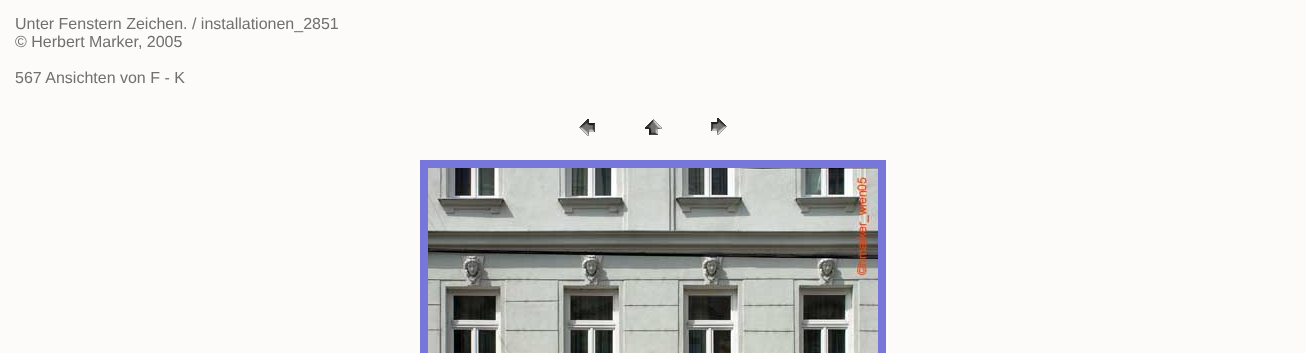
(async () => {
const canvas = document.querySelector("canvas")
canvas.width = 1306
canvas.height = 353
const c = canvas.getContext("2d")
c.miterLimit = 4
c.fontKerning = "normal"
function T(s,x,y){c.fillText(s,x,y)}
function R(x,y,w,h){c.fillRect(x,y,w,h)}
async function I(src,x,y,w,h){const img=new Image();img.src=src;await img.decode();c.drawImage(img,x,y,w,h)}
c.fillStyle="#fdfafa"
R(0,0,1306,353)
c.font="16px Liberation Sans"
c.fillStyle="#707070"
T("Unter Fenstern Zeichen. / installationen_2851",15,29)
T("© Herbert Marker, 2005",15,47)
T("567 Ansichten von F - K",15,83)
await I("1.png",579,119,16,17)
await I("2.png",645,119,17,16)
await I("3.png",711,118,16,17)
c.strokeStyle="#7676db"
c.lineWidth=8
c.strokeRect(424,164,458,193)
await I("4.png",428,168,450,185)
})()
